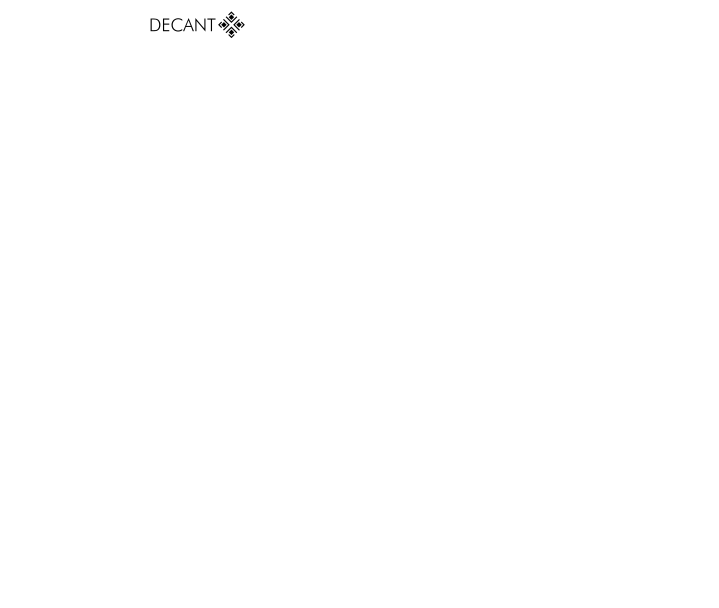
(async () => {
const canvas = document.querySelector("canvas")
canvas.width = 719
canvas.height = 608
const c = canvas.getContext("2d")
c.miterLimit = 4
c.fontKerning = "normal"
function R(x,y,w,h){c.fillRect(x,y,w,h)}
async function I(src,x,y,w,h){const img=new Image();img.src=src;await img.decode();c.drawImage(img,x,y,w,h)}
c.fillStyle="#fff"
R(0,0,719,608)
await I("1.png",150,11,95,27)
})()
